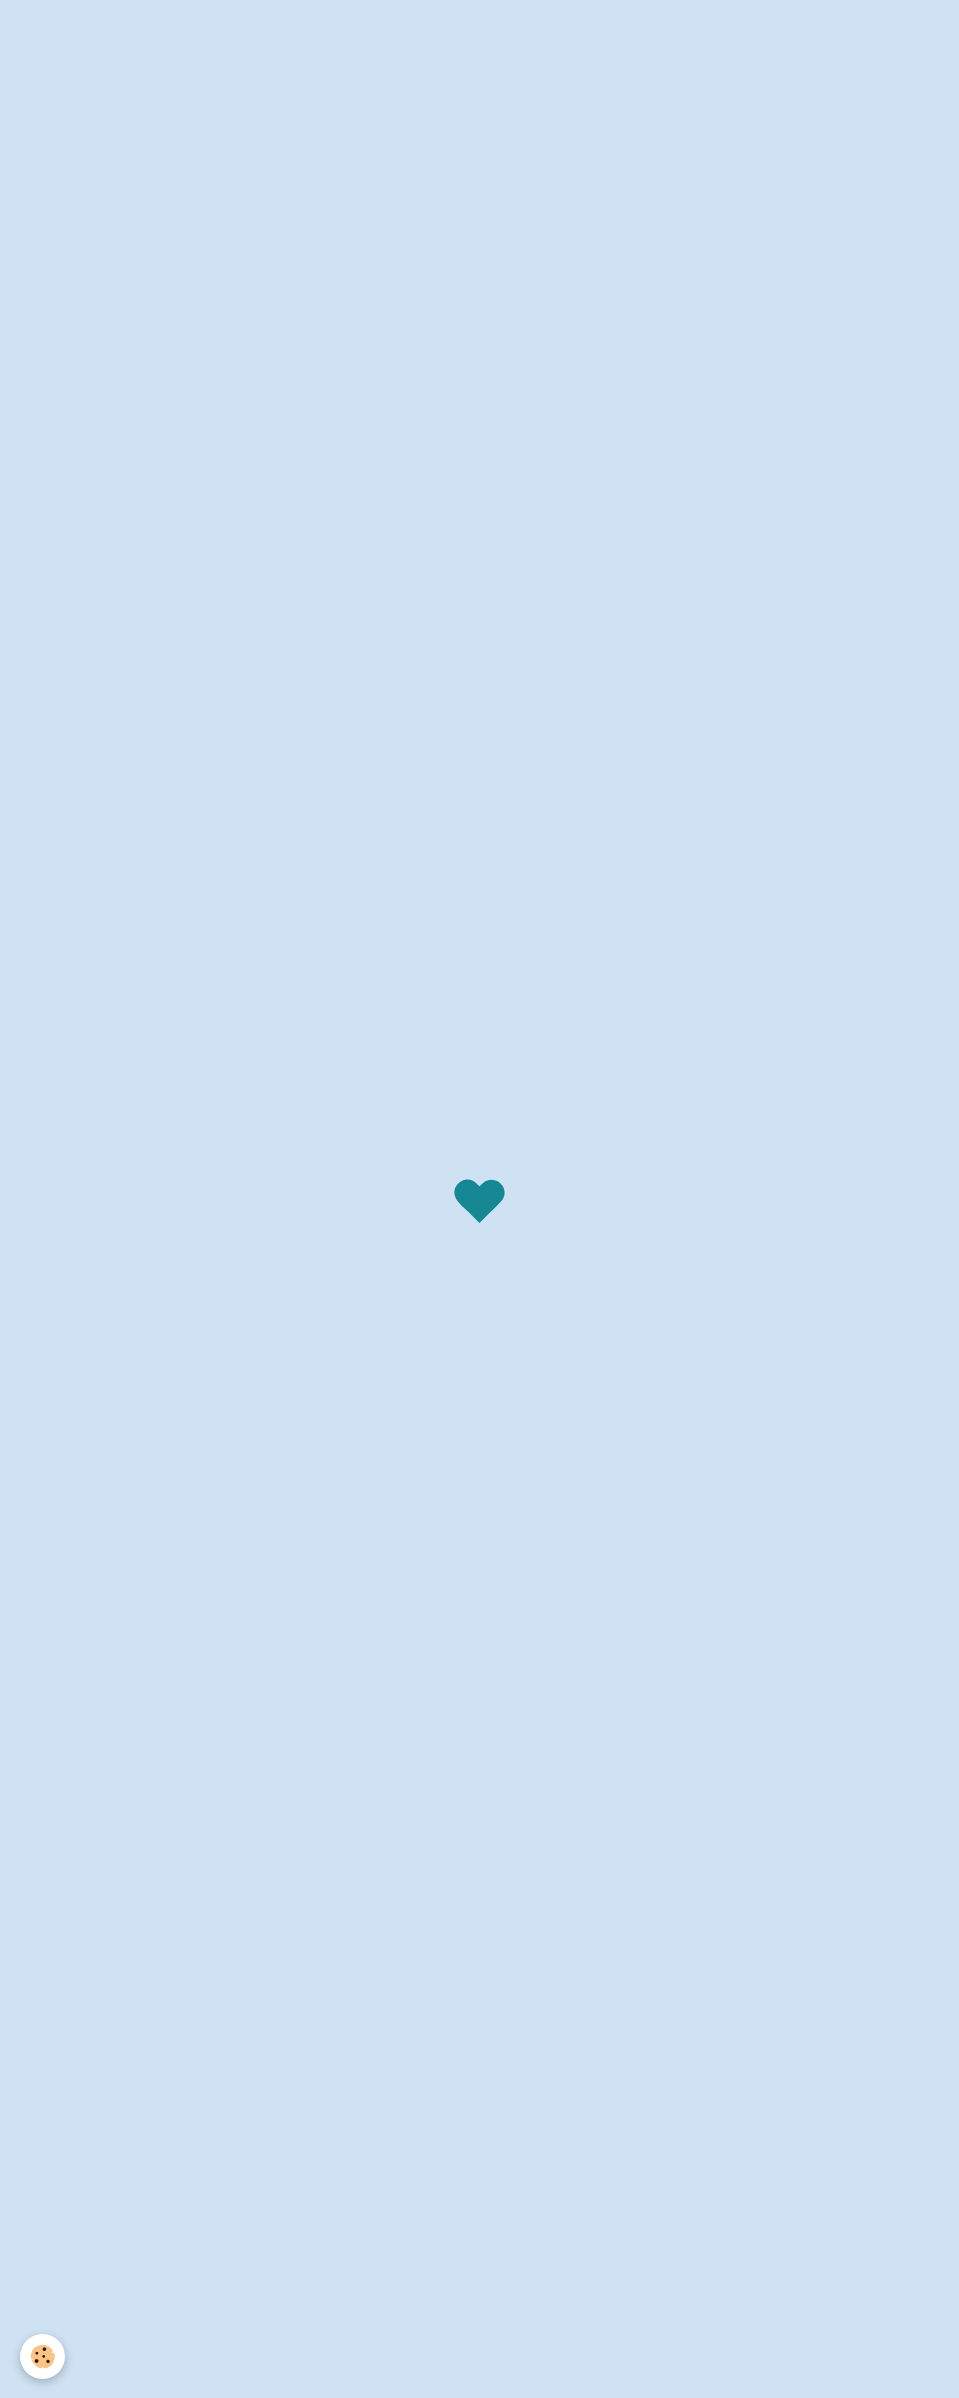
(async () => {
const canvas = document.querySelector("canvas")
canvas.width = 959
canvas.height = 2398
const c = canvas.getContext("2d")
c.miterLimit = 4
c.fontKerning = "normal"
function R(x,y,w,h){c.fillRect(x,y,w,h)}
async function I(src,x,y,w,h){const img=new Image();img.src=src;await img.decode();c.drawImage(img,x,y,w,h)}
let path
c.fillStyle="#cfe2f3"
R(0,0,959,2398)
c.fillStyle="#158893"
path = new Path2D("M479.5 1186.5l18.5 18l-18.5 18.5l-18.5-18.5z")
c.fill(path)
path = new Path2D("M476.5 1183.5l9.5 9l-18.5 18.5c-3.5-3.5-10.5-9-12-13.5c-5.5-13 11.5-24 21-14z")
c.fill(path)
path = new Path2D("M500.5 1183.5c5.5 5 5.5 13.5 0 18.5l-9 9l-18.5-18.5l9.5-9c5-5 13-5 18 0z")
c.fill(path)
c.fillStyle="#0000003d"
c.filter="blur(5px)"
c.beginPath()
c.roundRect(20,2337,45,45,22.5)
c.fill()
c.filter="none"
c.fillStyle="#fff"
c.beginPath()
c.arc(42.5,2356.5,22.5,0,7)
c.fill()
await I("1.png",30,2344,25,25)
})()
